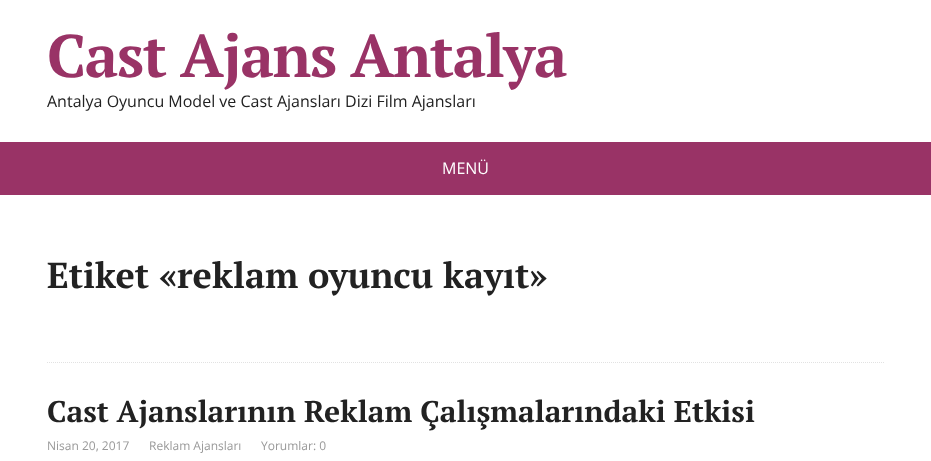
(async () => {
const canvas = document.querySelector("canvas")
canvas.width = 931
canvas.height = 461
const c = canvas.getContext("2d")
c.miterLimit = 4
c.fontKerning = "normal"
function T(s,x,y){c.fillText(s,x,y)}
function R(x,y,w,h){c.fillRect(x,y,w,h)}
let path
c.fillStyle="#fff"
R(0,0,931,461)
c.letterSpacing="-1.25px"
c.font="bold 60px PT Serif"
c.fillStyle="#936"
T("Cast Ajans Antalya",47,77)
c.letterSpacing="0px"
c.font="16px Open Sans"
c.fillStyle="#222"
T("Antalya Oyuncu Model ve Cast Ajansları Dizi Film Ajansları",47,107)
c.fillStyle="#936"
R(0,142,931,53)
c.fillStyle="#fff"
T("MENÜ",442,174)
path = new Path2D("M47 362.5h837")
c.strokeStyle="#e2e2e2"
c.setLineDash([1,1])
c.stroke(path)
c.font="bold 36px PT Serif"
c.fillStyle="#222"
T("Etiket «reklam oyuncu kayıt»",47,288)
c.font="bold 30px PT Serif"
T("Cast Ajanslarının Reklam Çalışmalarındaki Etkisi",47,422)
c.font="12px Open Sans"
c.fillStyle="#999"
T("Nisan 20, 2017",47,450)
T("Reklam Ajansları",149,450)
T("Yorumlar: 0",261,450)
})()
